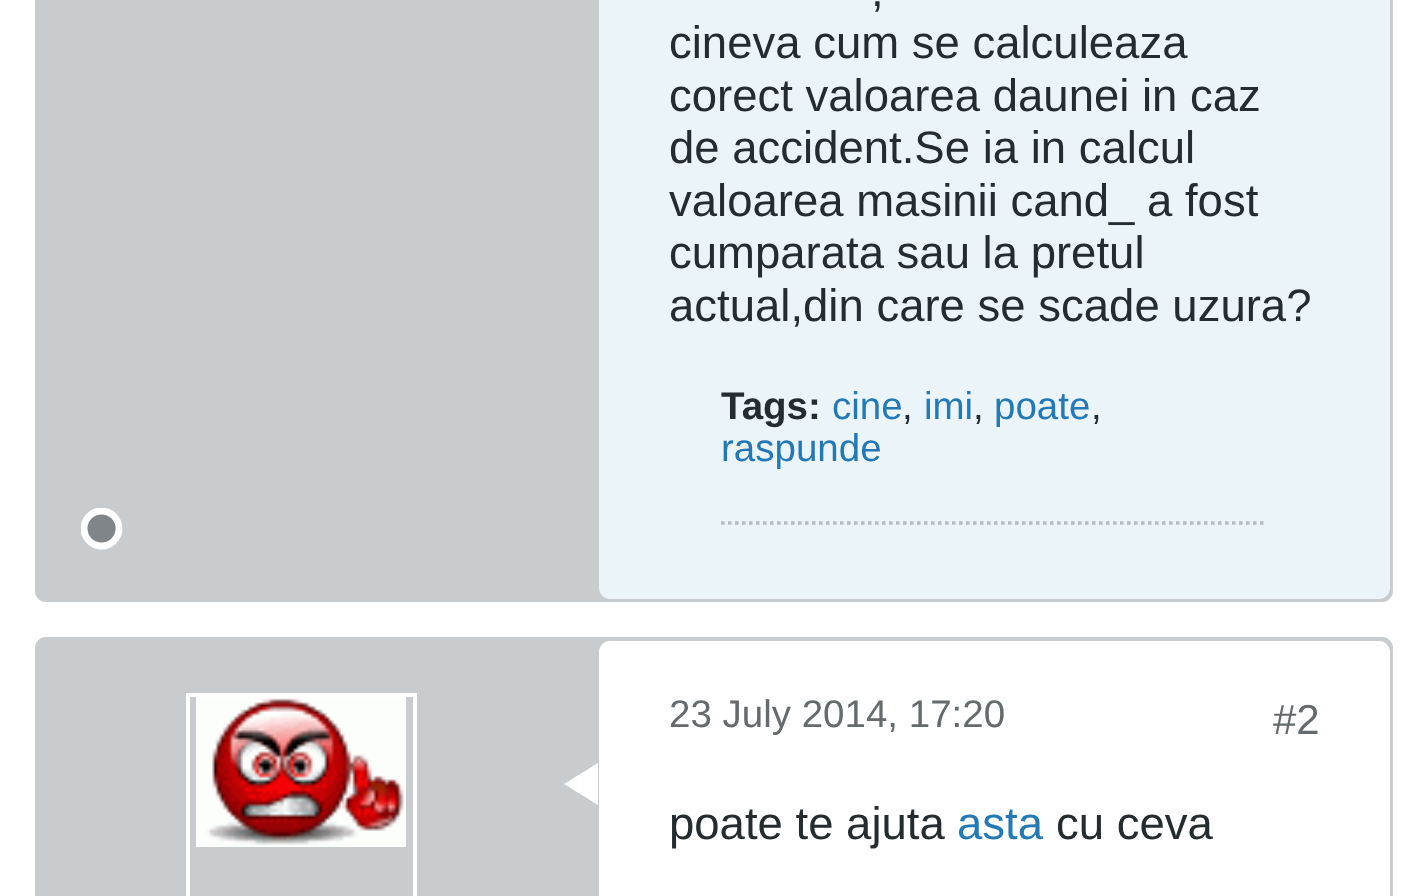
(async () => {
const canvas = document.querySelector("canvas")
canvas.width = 1425
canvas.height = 896
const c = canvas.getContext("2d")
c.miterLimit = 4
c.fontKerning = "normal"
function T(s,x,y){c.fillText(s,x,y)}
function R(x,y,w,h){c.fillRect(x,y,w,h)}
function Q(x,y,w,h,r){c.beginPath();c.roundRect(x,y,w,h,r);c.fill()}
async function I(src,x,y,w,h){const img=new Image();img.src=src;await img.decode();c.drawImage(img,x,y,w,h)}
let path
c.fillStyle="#fff"
R(0,0,1425,896)
c.fillStyle="#c8ccce"
c.beginPath()
c.roundRect(37,-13,1354,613,9)
c.fill()
c.strokeStyle="#c8ccce"
c.lineWidth=4
c.stroke()
c.fillStyle="#ebf4f9"
Q(599,-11,791,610,11)
c.font="45.5px Liberation Sans"
c.fillStyle="#252c2f"
T(",",871,6)
T("cineva cum se calculeaza",669,58)
T("corect valoarea daunei in caz",669,111)
T("de accident.Se ia in calcul",669,163)
T("valoarea masinii cand_ a fost",669,216)
T("cumparata sau la pretul",669,268)
T("actual,din care se scade uzura?",669,321)
c.font="bold 38.5px Liberation Sans"
T("Tags:",721,419)
c.font="38.5px Liberation Sans"
c.fillStyle="#2379b5"
T("cine",832,419)
c.fillStyle="#252c2f"
T(",",902,419)
c.fillStyle="#2379b5"
T("imi",924,419)
c.fillStyle="#252c2f"
T(",",973,419)
c.fillStyle="#2379b5"
T("poate",994,419)
c.fillStyle="#252c2f"
T(",",1091,419)
c.fillStyle="#2379b5"
T("raspunde",721,461)
path = new Path2D("M721 523h546")
c.strokeStyle="#b7bcbe"
c.lineWidth=3.5
c.setLineDash([3.5,3.5])
c.stroke(path)
await I("1.png",81,508,42,42)
c.fillStyle="#c8ccce"
c.beginPath()
c.roundRect(37,639,1354,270,9)
c.fill()
c.strokeStyle="#c8ccce"
c.lineWidth=4
c.setLineDash([])
c.stroke()
c.strokeStyle="#fff"
c.strokeRect(188,695,227,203)
await I("2.png",196,697,210,150)
c.fillStyle="#fff"
Q(599,641,791,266,11)
path = new Path2D("M598 763v42l-34-21z")
c.fill(path)
c.fillStyle="#656a6d"
T("23 July 2014, 17:20",669,727)
c.font="42px Liberation Sans"
T("#2",1273,734)
c.font="45.5px Liberation Sans"
c.fillStyle="#252c2f"
T("poate te ajuta",669,839)
c.fillStyle="#2379b5"
T("asta",957,839)
c.fillStyle="#252c2f"
T("cu ceva",1056,839)
})()
